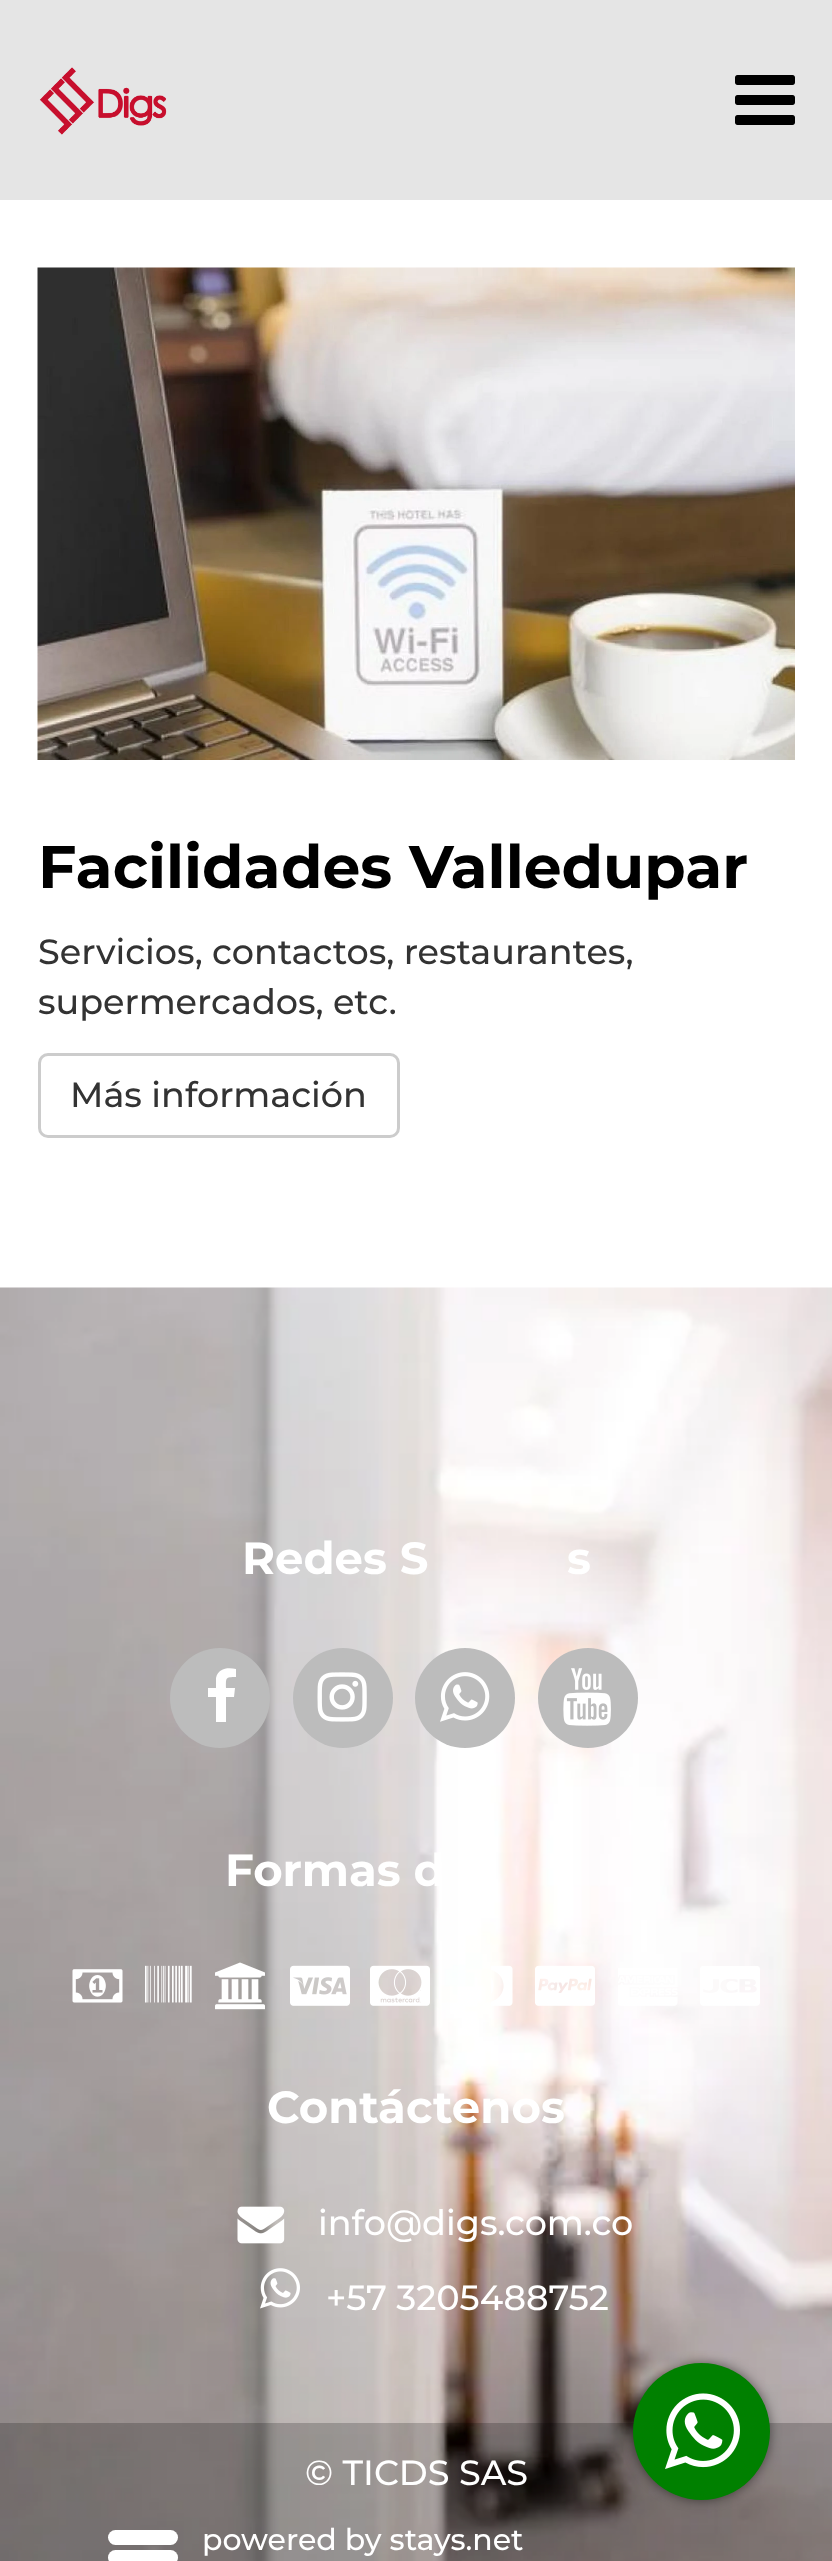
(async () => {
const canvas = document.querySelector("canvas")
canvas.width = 832
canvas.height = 2561
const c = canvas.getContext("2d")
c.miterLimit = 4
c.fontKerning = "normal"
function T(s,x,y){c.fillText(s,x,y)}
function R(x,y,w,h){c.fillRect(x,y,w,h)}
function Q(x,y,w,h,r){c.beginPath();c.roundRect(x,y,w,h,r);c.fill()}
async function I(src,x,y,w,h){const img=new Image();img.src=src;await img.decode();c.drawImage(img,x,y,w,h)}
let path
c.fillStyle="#fff"
R(0,0,832,2561)
c.fillStyle="#e5e5e5"
R(0,0,832,200)
await I("1.png",39,67,128,68)
await I("2.png",735,75,60,50)
await I("3.png",37,267,758,493)
c.font="bold 60px Montserrat"
c.fillStyle="#000"
T("Facilidades Valledupar",38,888)
c.font="500 35px Montserrat"
c.fillStyle="#333"
T("Servicios, contactos, restaurantes,",38,964)
T("supermercados, etc.",38,1014)
c.beginPath()
c.roundRect(39.5,1054.5,359,82,8.5)
c.strokeStyle="#ccc"
c.lineWidth=3
c.stroke()
T("Más información",70,1107)
await I("4.png",0,1287,832,1274)
c.font="bold 45px Montserrat"
c.fillStyle="#fff"
T("Redes S",242,1574)
T("s",567,1574)
c.fillStyle="#bcbcbc"
c.beginPath()
c.arc(220,1698,50,0,7)
c.fill()
c.fillStyle="#fff"
path = new Path2D("M236 1669v8c-11 0-10 1-10 11h9l-1 9h-8v25h-10v-25h-8v-9h8v-10c2-10 12-11 20-9z")
c.fill(path)
c.fillStyle="#bcbcbc"
c.beginPath()
c.arc(343,1698,50,0,7)
c.fill()
await I("5.png",317,1672,50,50)
c.beginPath()
c.arc(465,1698,50,0,7)
c.fill()
await I("6.png",440,1672,50,50)
c.beginPath()
c.arc(588,1698,50,0,7)
c.fill()
await I("7.png",563,1668,48,58)
c.fillStyle="#fff"
T("Formas d",225,1886)
await I("8.png",72,1969,51,34)
await I("9.png",145,1965,47,38)
await I("10.png",215,1962,50,48)
await I("11.png",290,1965,60,41)
await I("12.png",370,1965,60,41)
await I("13.png",491,1965,22,41)
await I("14.png",535,1965,60,41)
await I("15.png",618,1968,60,38)
await I("16.png",700,1966,60,40)
T("Contáctenos",267,2123)
await I("17.png",237,2206,48,38)
c.font="500 35px Montserrat"
T("info@digs.com.co",318,2235)
await I("18.png",260,2268,40,41)
T("+57 3205488752",326,2310)
c.fillStyle="#00000033"
R(0,2423,832,138)
c.fillStyle="#00000080"
c.filter="blur(6px)"
c.beginPath()
c.roundRect(633,2363,137,137,68.5)
c.fill()
c.filter="none"
c.fillStyle="#008000"
c.beginPath()
c.arc(701.5,2431.5,68.5,0,7)
c.fill()
await I("19.png",665,2393,75,76)
c.fillStyle="#fff"
T("© TICDS SAS",305,2485)
Q(108,2550,70,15,7.5)
Q(108,2530,70,15,7.5)
c.font="500 30px Montserrat"
T("powered by stays.net",202,2550)
})()
